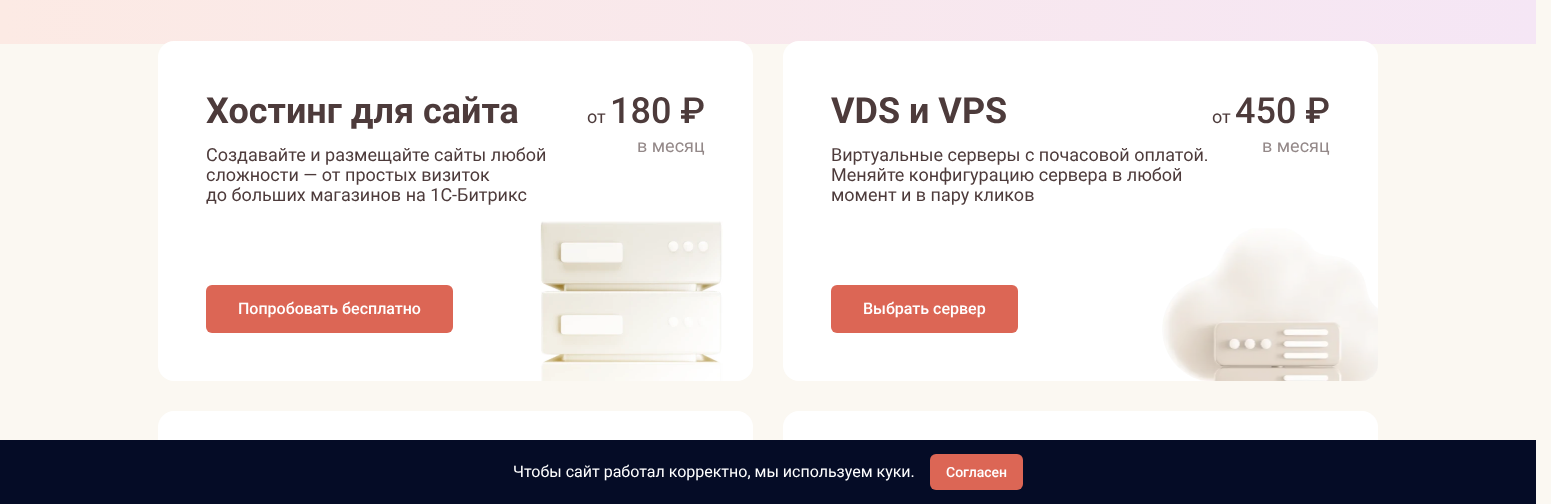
(async () => {
const canvas = document.querySelector("canvas")
canvas.width = 1551
canvas.height = 504
const c = canvas.getContext("2d")
c.miterLimit = 4
c.fontKerning = "normal"
function T(s,x,y){c.fillText(s,x,y)}
function R(x,y,w,h){c.fillRect(x,y,w,h)}
function Q(x,y,w,h,r){c.beginPath();c.roundRect(x,y,w,h,r);c.fill()}
async function I(src,x,y,w,h){const img=new Image();img.src=src;await img.decode();c.drawImage(img,x,y,w,h)}
let gradient
c.fillStyle="#fbf8f2"
R(0,0,1551,504)
gradient = c.createLinearGradient(0,-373,1536,-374)
gradient.addColorStop(0,"#fceae4")
gradient.addColorStop(1,"#f5e6f5")
c.fillStyle = gradient
R(0,0,1536,44)
c.fillStyle="#fff"
Q(158,41,595,340,16)
c.font="bold 36px Roboto"
c.fillStyle="#4d3b3b"
T("Хостинг для сайта",206,123)
c.font="18px Roboto"
T("Создавайте и размещайте сайты любой",206,161)
T("сложности — от простых визиток",206,181)
T("до больших магазинов на 1С-Битрикс",206,201)
c.fillStyle="#dc6655"
Q(206,285,247,48,6)
c.font="500 16px Roboto"
c.fillStyle="#fff"
T("Попробовать бесплатно",238,314)
c.font="18px Roboto"
c.fillStyle="#4d3b3b"
T("от",587,123)
c.font="500 36px Roboto"
T("180 ₽",610,123)
c.font="18px Roboto"
c.fillStyle="#948989"
T("в месяц",637,152)
await I("1.png",540,221,183,160)
c.fillStyle="#fff"
Q(783,41,595,340,16)
c.font="bold 36px Roboto"
c.fillStyle="#4d3b3b"
T("VDS и VPS",831,123)
c.font="18px Roboto"
T("Виртуальные серверы с почасовой оплатой.",831,161)
T("Меняйте конфигурацию сервера в любой",831,181)
T("момент и в пару кликов",831,201)
c.fillStyle="#dc6655"
Q(831,285,187,48,6)
c.font="500 16px Roboto"
c.fillStyle="#fff"
T("Выбрать сервер",863,314)
c.font="18px Roboto"
c.fillStyle="#4d3b3b"
T("от",1212,123)
c.font="500 36px Roboto"
T("450 ₽",1235,123)
c.font="18px Roboto"
c.fillStyle="#948989"
T("в месяц",1262,152)
await I("2.png",1162,228,216,153)
c.fillStyle="#fff"
Q(158,411,595,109,16)
Q(783,411,595,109,16)
c.fillStyle="#050c26"
R(0,440,1536,64)
c.font="16px Roboto"
c.fillStyle="#fff"
T("Чтобы сайт работал корректно, мы используем куки.",513,477)
c.fillStyle="#dc6655"
Q(930,454,93,36,6)
c.font="500 14px Roboto"
c.fillStyle="#fff"
T("Согласен",946,477)
})()
